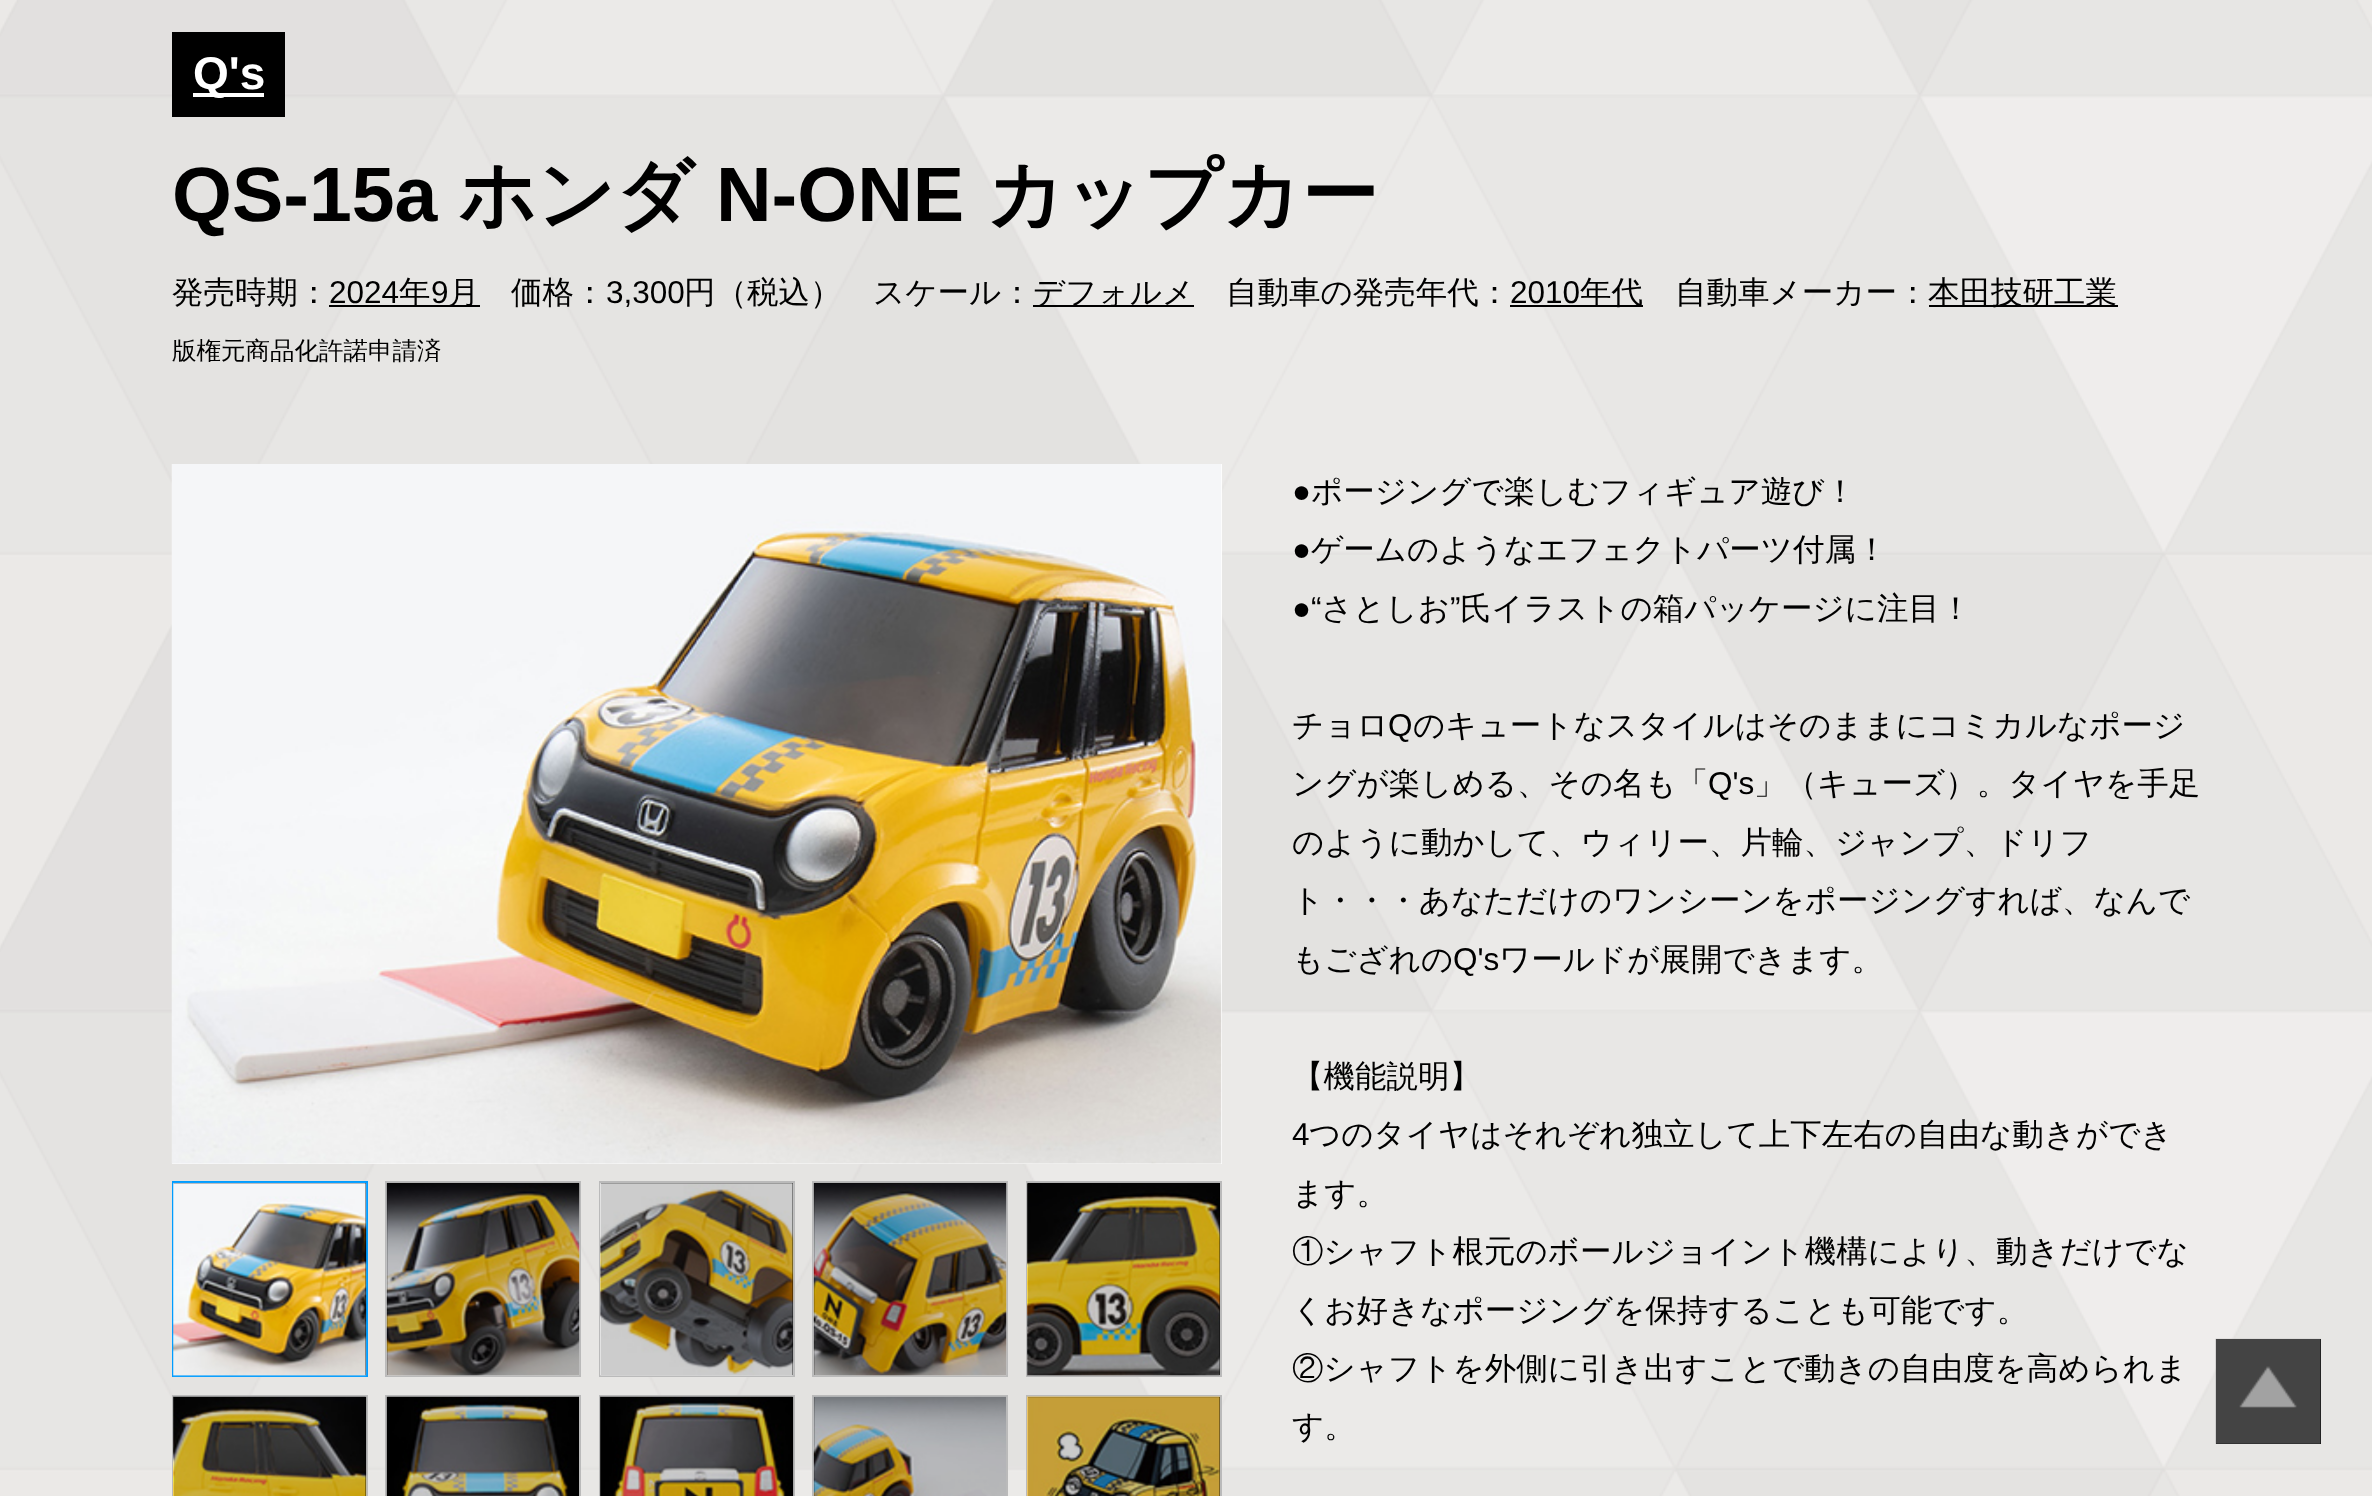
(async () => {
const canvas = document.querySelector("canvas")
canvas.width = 2372
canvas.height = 1496
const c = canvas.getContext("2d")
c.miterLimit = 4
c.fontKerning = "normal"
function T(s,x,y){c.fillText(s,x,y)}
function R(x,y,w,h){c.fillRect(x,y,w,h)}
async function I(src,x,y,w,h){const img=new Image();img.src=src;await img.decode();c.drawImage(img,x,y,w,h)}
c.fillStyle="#fff"
R(0,0,2372,1496)
await I("1.png",0,0,2372,1496)
c.fillStyle="#000"
R(172,32,113,85)
c.fillStyle="#fff"
R(193,93,71,4)
c.font="bold 46px Liberation Sans"
T("Q's",193,89)
c.font="bold 77px Liberation Sans"
c.fillStyle="#000"
T("QS-15a",172,221)
c.font="bold 77px WenQuanYi Zen Hei"
T("ホンダ",458,221)
c.font="bold 77px Liberation Sans"
T("N-ONE",716,221)
c.font="bold 77px WenQuanYi Zen Hei"
T("カップカー",986,221)
c.font="500 31.5px WenQuanYi Zen Hei"
T("発売時期：",172,303)
c.font="31.5px Liberation Sans"
T("2024",329,303)
R(329,305,151,2)
c.font="500 31.5px WenQuanYi Zen Hei"
T("年",399,303)
c.font="31.5px Liberation Sans"
T("9",431,303)
c.font="500 31.5px WenQuanYi Zen Hei"
T("月",448,303)
T("価格：",511,303)
c.font="31.5px Liberation Sans"
T("3,300",606,303)
c.font="500 31.5px WenQuanYi Zen Hei"
T("円（税込）",684,303)
T("スケール：",873,303)
R(1033,305,161,2)
T("デフォルメ",1033,303)
T("自動車の発売年代：",1226,303)
c.font="31.5px Liberation Sans"
T("2010",1510,303)
R(1510,305,133,2)
c.font="500 31.5px WenQuanYi Zen Hei"
T("年代",1580,303)
T("自動車メーカー：",1675,303)
R(1929,305,189,2)
T("本田技研工業",1928,303)
c.font="500 24.5px WenQuanYi Zen Hei"
T("版権元商品化許諾申請済",172,359)
c.fillStyle="#fff"
R(172,464,1050,700)
await I("2.png",171,464,1051,700)
c.fillStyle="#000"
c.beginPath()
c.rect(173,1182,194,194)
c.fill()
c.strokeStyle="#009cff"
c.lineWidth=2
c.stroke()
await I("3.png",173,1182,194,195)
c.beginPath()
c.rect(386,1182,194,194)
c.fill()
c.strokeStyle="#bababa"
c.stroke()
await I("4.png",386,1182,194,194)
c.beginPath()
c.rect(600,1182,194,194)
c.fill()
c.stroke()
await I("5.png",600,1183,194,193)
c.beginPath()
c.rect(813,1182,194,194)
c.fill()
c.stroke()
await I("6.png",813,1182,194,194)
c.beginPath()
c.rect(1027,1182,194,194)
c.fill()
c.stroke()
await I("7.png",1027,1182,193,195)
c.beginPath()
c.rect(173,1396,194,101)
c.fill()
c.stroke()
await I("8.png",173,1396,194,100)
c.beginPath()
c.rect(386,1396,194,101)
c.fill()
c.stroke()
await I("9.png",386,1396,193,100)
c.beginPath()
c.rect(600,1396,194,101)
c.fill()
c.stroke()
await I("10.png",600,1396,194,100)
c.beginPath()
c.rect(813,1396,194,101)
c.fill()
c.stroke()
await I("11.png",813,1396,193,100)
c.beginPath()
c.rect(1027,1396,194,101)
c.fill()
c.stroke()
await I("12.png",1027,1396,193,100)
c.font="31.5px Liberation Sans"
T("●",1292,502)
c.font="500 31.5px WenQuanYi Zen Hei"
T("ポージングで楽しむフィギュア遊び！",1311,502)
c.font="31.5px Liberation Sans"
T("●",1292,560)
c.font="500 31.5px WenQuanYi Zen Hei"
T("ゲームのようなエフェクトパーツ付属！",1311,560)
c.font="31.5px Liberation Sans"
T("●“",1292,619)
c.font="500 31.5px WenQuanYi Zen Hei"
T("さとしお",1321,619)
c.font="31.5px Liberation Sans"
T("”",1450,619)
c.font="500 31.5px WenQuanYi Zen Hei"
T("氏イラストの箱パッケージに注目！",1460,619)
T("チョロ",1292,736)
c.font="31.5px Liberation Sans"
T("Q",1388,736)
c.font="500 31.5px WenQuanYi Zen Hei"
T("のキュートなスタイルはそのままにコミカルなポージ",1413,736)
T("ングが楽しめる、その名も「",1292,794)
c.font="31.5px Liberation Sans"
T("Q's",1708,794)
c.font="500 31.5px WenQuanYi Zen Hei"
T("」（キューズ）。タイヤを手足",1754,794)
T("のように動かして、ウィリー、片輪、ジャンプ、ドリフ",1292,853)
T("ト・・・あなただけのワンシーンをポージングすれば、なんで",1292,911)
T("もござれの",1292,970)
c.font="31.5px Liberation Sans"
T("Q's",1453,970)
c.font="500 31.5px WenQuanYi Zen Hei"
T("ワールドが展開できます。",1499,970)
T("【機能説明】",1292,1087)
c.font="31.5px Liberation Sans"
T("4",1292,1145)
c.font="500 31.5px WenQuanYi Zen Hei"
T("つのタイヤはそれぞれ独立して上下左右の自由な動きができ",1309,1145)
T("ます。",1292,1204)
T("①シャフト根元のボールジョイント機構により、動きだけでな",1292,1262)
T("くお好きなポージングを保持することも可能です。",1292,1321)
T("②シャフトを外側に引き出すことで動きの自由度を高められま",1292,1379)
T("す。",1292,1437)
R(2216,1339,105,105)
await I("13.png",2215,1338,106,106)
})()
